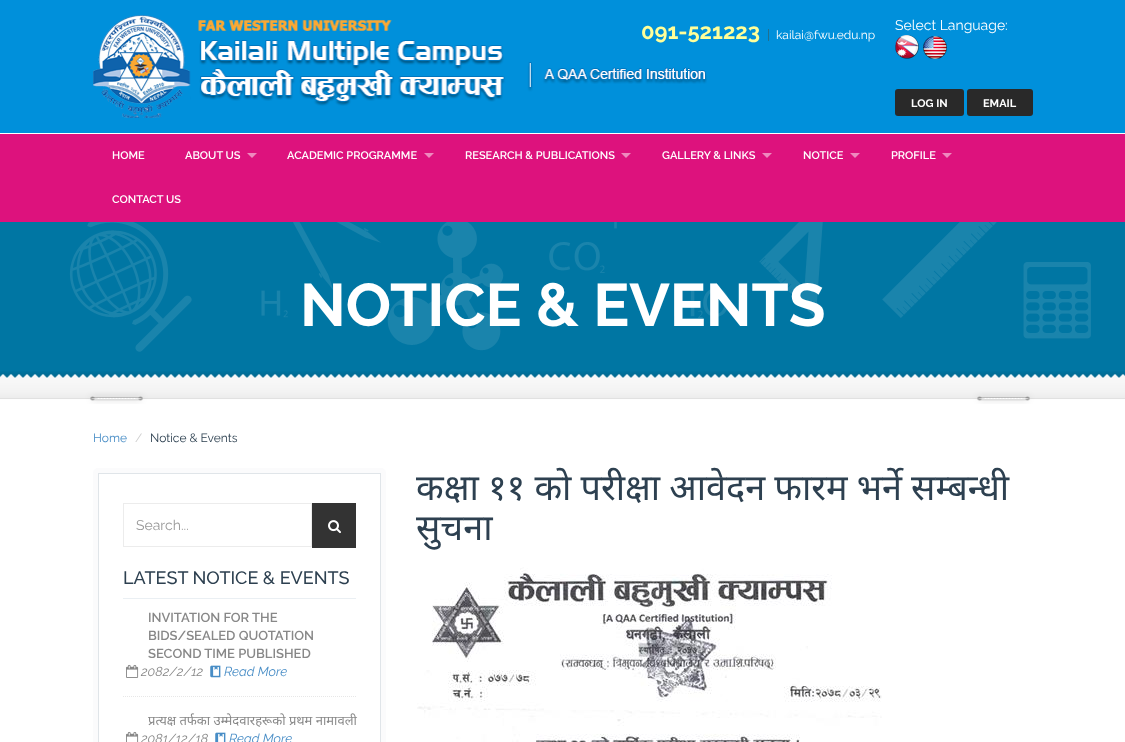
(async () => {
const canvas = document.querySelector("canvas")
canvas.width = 1125
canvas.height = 742
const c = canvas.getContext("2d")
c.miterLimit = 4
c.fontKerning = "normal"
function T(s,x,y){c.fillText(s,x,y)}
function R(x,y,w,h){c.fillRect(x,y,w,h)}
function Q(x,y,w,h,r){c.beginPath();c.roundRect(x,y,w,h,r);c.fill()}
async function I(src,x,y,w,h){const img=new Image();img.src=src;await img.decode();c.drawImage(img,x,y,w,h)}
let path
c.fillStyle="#fff"
R(0,0,1125,742)
c.fillStyle="#0090db"
R(0,0,1125,133)
await I("1.png",93,15,614,103)
c.font="bold 22px Raleway"
c.fillStyle="#ff9"
T("091-521223",641,39)
c.fillStyle="#217090"
R(768,29,1,12)
c.font="12px Raleway"
c.fillStyle="#fff"
T("kailai@fwu.edu.np",776,39)
c.font="14px Raleway"
T("Select Language:",895,30)
await I("2.png",895,35,24,24)
await I("3.png",923,36,24,23)
c.fillStyle="#292929"
Q(895,89,69,27,3)
c.font="bold 11px Raleway"
c.fillStyle="#fff"
T("LOG IN",911,107)
c.fillStyle="#292929"
Q(967,89,66,27,3)
c.fillStyle="#fff"
T("EMAIL",983,107)
c.fillStyle="#dd127d"
R(0,134,1125,88)
c.font="600 11px Raleway"
c.fillStyle="#fff"
T("HOME",112,159)
T("ABOUT US",185,159)
c.fillStyle="#ee89be"
path = new Path2D("M247 153h10l-5 5z")
c.fill(path)
c.fillStyle="#fff"
T("ACADEMIC PROGRAMME",287,159)
c.fillStyle="#ee89be"
path = new Path2D("M424 153h10l-5 5z")
c.fill(path)
c.fillStyle="#fff"
T("RESEARCH & PUBLICATIONS",465,159)
c.fillStyle="#ee89be"
path = new Path2D("M621 153h10l-5 5z")
c.fill(path)
c.fillStyle="#fff"
T("GALLERY & LINKS",662,159)
c.fillStyle="#ee89be"
path = new Path2D("M762 153h10l-5 5z")
c.fill(path)
c.fillStyle="#fff"
T("NOTICE",803,159)
c.fillStyle="#ee89be"
path = new Path2D("M850 153h10l-5 5z")
c.fill(path)
c.fillStyle="#fff"
T("PROFILE",891,159)
c.fillStyle="#ee89be"
path = new Path2D("M942 153h10l-5 5z")
c.fill(path)
c.fillStyle="#fff"
T("CONTACT US",112,203)
c.fillStyle="#0076a3"
R(0,222,1125,156)
await I("4.png",28,222,1063,156)
c.font="bold 60px Raleway"
c.fillStyle="#fff"
T("NOTICE & EVENTS",300,326)
await I("5.png",0,371,1125,33)
c.font="12px Raleway"
c.fillStyle="#488dc6"
T("Home",93,442)
c.fillStyle="#ccc"
T("/",135,442)
c.fillStyle="#2d4050"
T("Notice & Events",150,442)
c.wordSpacing="-0.25px"
c.font="36px Noto Sans"
T("कक्षा ११ को परीक्षा आवेदन फारम भर्ने सम्बन्धी",416,500)
c.wordSpacing="0px"
T("सुचना",416,540)
await I("6.png",417,567,465,175)
c.strokeStyle="#e0e5e9"
c.strokeRect(98.5,473.5,282,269)
c.beginPath()
c.roundRect(95.5,470.5,288,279,2.5)
c.strokeStyle="#fbfbfc"
c.lineWidth=5
c.stroke()
c.strokeStyle="#ececec"
c.lineWidth=1
c.strokeRect(123.5,503.5,188,43)
c.font="14px Raleway"
c.fillStyle="#999"
T("Search...",136,530)
c.fillStyle="#333"
R(312,503,44,45)
await I("7.png",328,520,13,14)
c.fillStyle="#eaeff3"
R(123,598,233,1)
c.font="500 18px Raleway"
c.fillStyle="#2d4050"
T("LATEST NOTICE & EVENTS",123,584)
path = new Path2D("M123 696.5h233")
c.strokeStyle="#e7e7e7"
c.setLineDash([1,1])
c.stroke(path)
c.font="600 13px Raleway"
c.fillStyle="#888"
T("INVITATION FOR THE",148,622)
T("BIDS/SEALED QUOTATION",148,640)
T("SECOND TIME PUBLISHED",148,658)
await I("8.png",126,664,13,14)
c.font="italic 13px Raleway"
T("2082/2/12",141,676)
await I("9.png",210,665,11,13)
c.fillStyle="#488dc6"
T("Read More",224,676)
c.font="13px Noto Sans"
c.fillStyle="#888"
T("प्रत्यक्ष तर्फका उम्मेदवारहरूको प्रथम नामावली",148,725)
await I("10.png",126,731,13,11)
c.font="italic 13px Raleway"
T("2081/12/18",141,743)
await I("11.png",215,732,11,10)
c.fillStyle="#488dc6"
T("Read More",229,743)
})()
